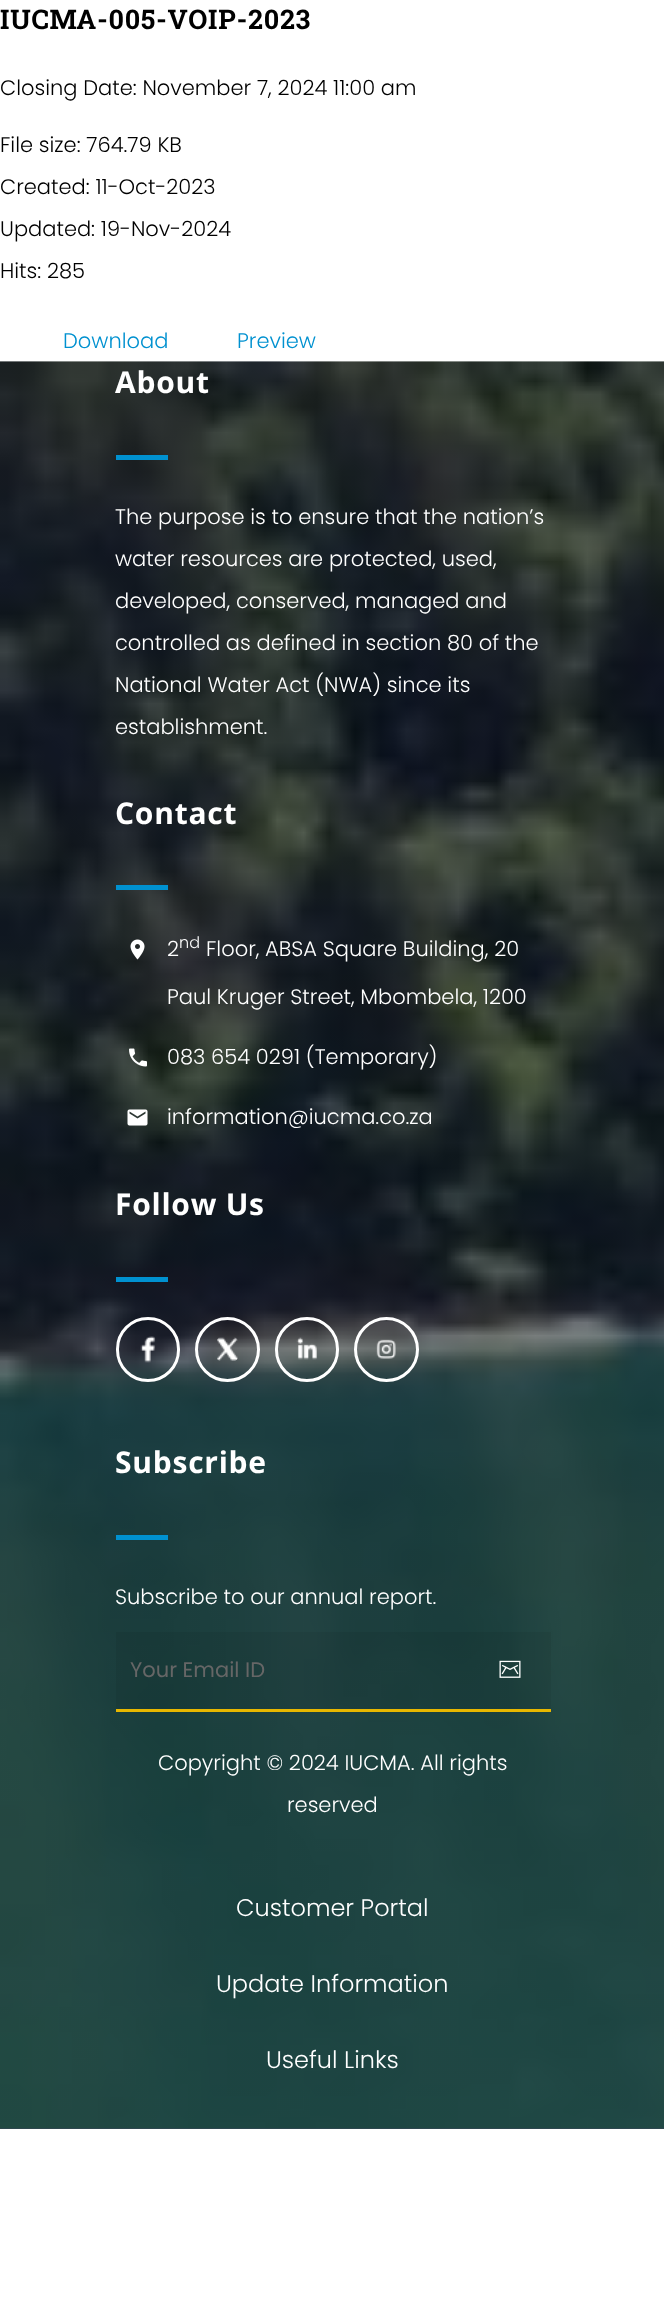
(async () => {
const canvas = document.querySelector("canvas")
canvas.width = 664
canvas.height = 2323
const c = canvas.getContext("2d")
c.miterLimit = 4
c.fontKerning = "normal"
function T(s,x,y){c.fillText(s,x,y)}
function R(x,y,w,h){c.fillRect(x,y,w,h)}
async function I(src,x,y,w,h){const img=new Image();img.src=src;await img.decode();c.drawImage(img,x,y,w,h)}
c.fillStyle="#fff"
R(0,0,664,2323)
c.letterSpacing="0.75px"
c.font="bold 27px Roboto Slab"
c.fillStyle="#000"
T("IUCMA-005-VOIP-2023",0,29)
c.letterSpacing="0px"
c.font="300 21px Poppins"
T("Closing Date: November 7, 2024 11:00 am",0,95)
T("File size: 764.79 KB",0,152)
T("Created: 11-Oct-2023",0,194)
T("Updated: 19-Nov-2024",0,236)
T("Hits: 285",0,278)
c.fillStyle="#0091d0"
T("Download",63,348)
T("Preview",237,348)
c.fillStyle="#313c4b"
R(0,2128,664,1)
await I("1.png",0,361,664,1768)
c.letterSpacing="0.75px"
c.font="bold 30px Open Sans"
c.fillStyle="#fff"
T("About",115,393)
c.fillStyle="#0091d0"
R(116,455,52,5)
c.letterSpacing="0px"
c.font="300 21px Poppins"
c.fillStyle="#fff"
T("The purpose is to ensure that the nation’s",115,524)
T("water resources are protected, used,",115,566)
T("developed, conserved, managed and",115,608)
T("controlled as defined in section 80 of the",115,650)
T("National Water Act (NWA) since its",115,692)
T("establishment.",115,734)
c.letterSpacing="0.75px"
c.font="bold 30px Open Sans"
T("Contact",115,824)
c.fillStyle="#0091d0"
R(116,885,52,5)
await I("2.png",130,939,15,21)
c.letterSpacing="0px"
c.font="300 21px Poppins"
c.fillStyle="#fff"
T("2",167,956)
c.font="300 16px Poppins"
T("nd",179,948)
c.font="300 21px Poppins"
T("Floor, ABSA Square Building, 20",206,956)
T("Paul Kruger Street, Mbombela, 1200",167,1004)
await I("3.png",129,1048,18,19)
T("083 654 0291 (Temporary)",167,1064)
await I("4.png",127,1109,21,17)
T("information@iucma.co.za",167,1124)
c.letterSpacing="0.75px"
c.font="bold 30px Open Sans"
T("Follow Us",115,1215)
c.fillStyle="#0091d0"
R(116,1277,52,5)
c.beginPath()
c.roundRect(117.5,1318.5,61,62,30.5)
c.strokeStyle="#fff"
c.lineWidth=3
c.stroke()
await I("5.png",140,1336,16,27)
c.beginPath()
c.arc(227.5,1349.5,31,0,7)
c.stroke()
await I("6.png",217,1337,21,24)
c.beginPath()
c.roundRect(276.5,1318.5,61,62,30.5)
c.stroke()
await I("7.png",296,1337,21,23)
c.beginPath()
c.arc(386.5,1349.5,31,0,7)
c.stroke()
await I("8.png",376,1339,20,20)
c.fillStyle="#fff"
T("Subscribe",115,1473)
c.fillStyle="#0091d0"
R(116,1535,52,5)
c.letterSpacing="0px"
c.font="300 21px Poppins"
c.fillStyle="#fff"
T("Subscribe to our annual report.",115,1604)
c.fillStyle="#0000000d"
R(116,1632,435,77)
c.fillStyle="#e8b700"
R(116,1709,435,3)
c.font="21px Poppins"
c.fillStyle="#666"
T("Your Email ID",130,1677)
await I("9.png",499,1660,22,18)
c.font="300 21px Poppins"
c.fillStyle="#fff"
T("Copyright © 2024 IUCMA. All rights",158,1770)
T("reserved",287,1812)
c.font="300 24px Poppins"
T("Customer Portal",236,1916)
T("Update Information",216,1992)
T("Useful Links",266,2068)
})()
